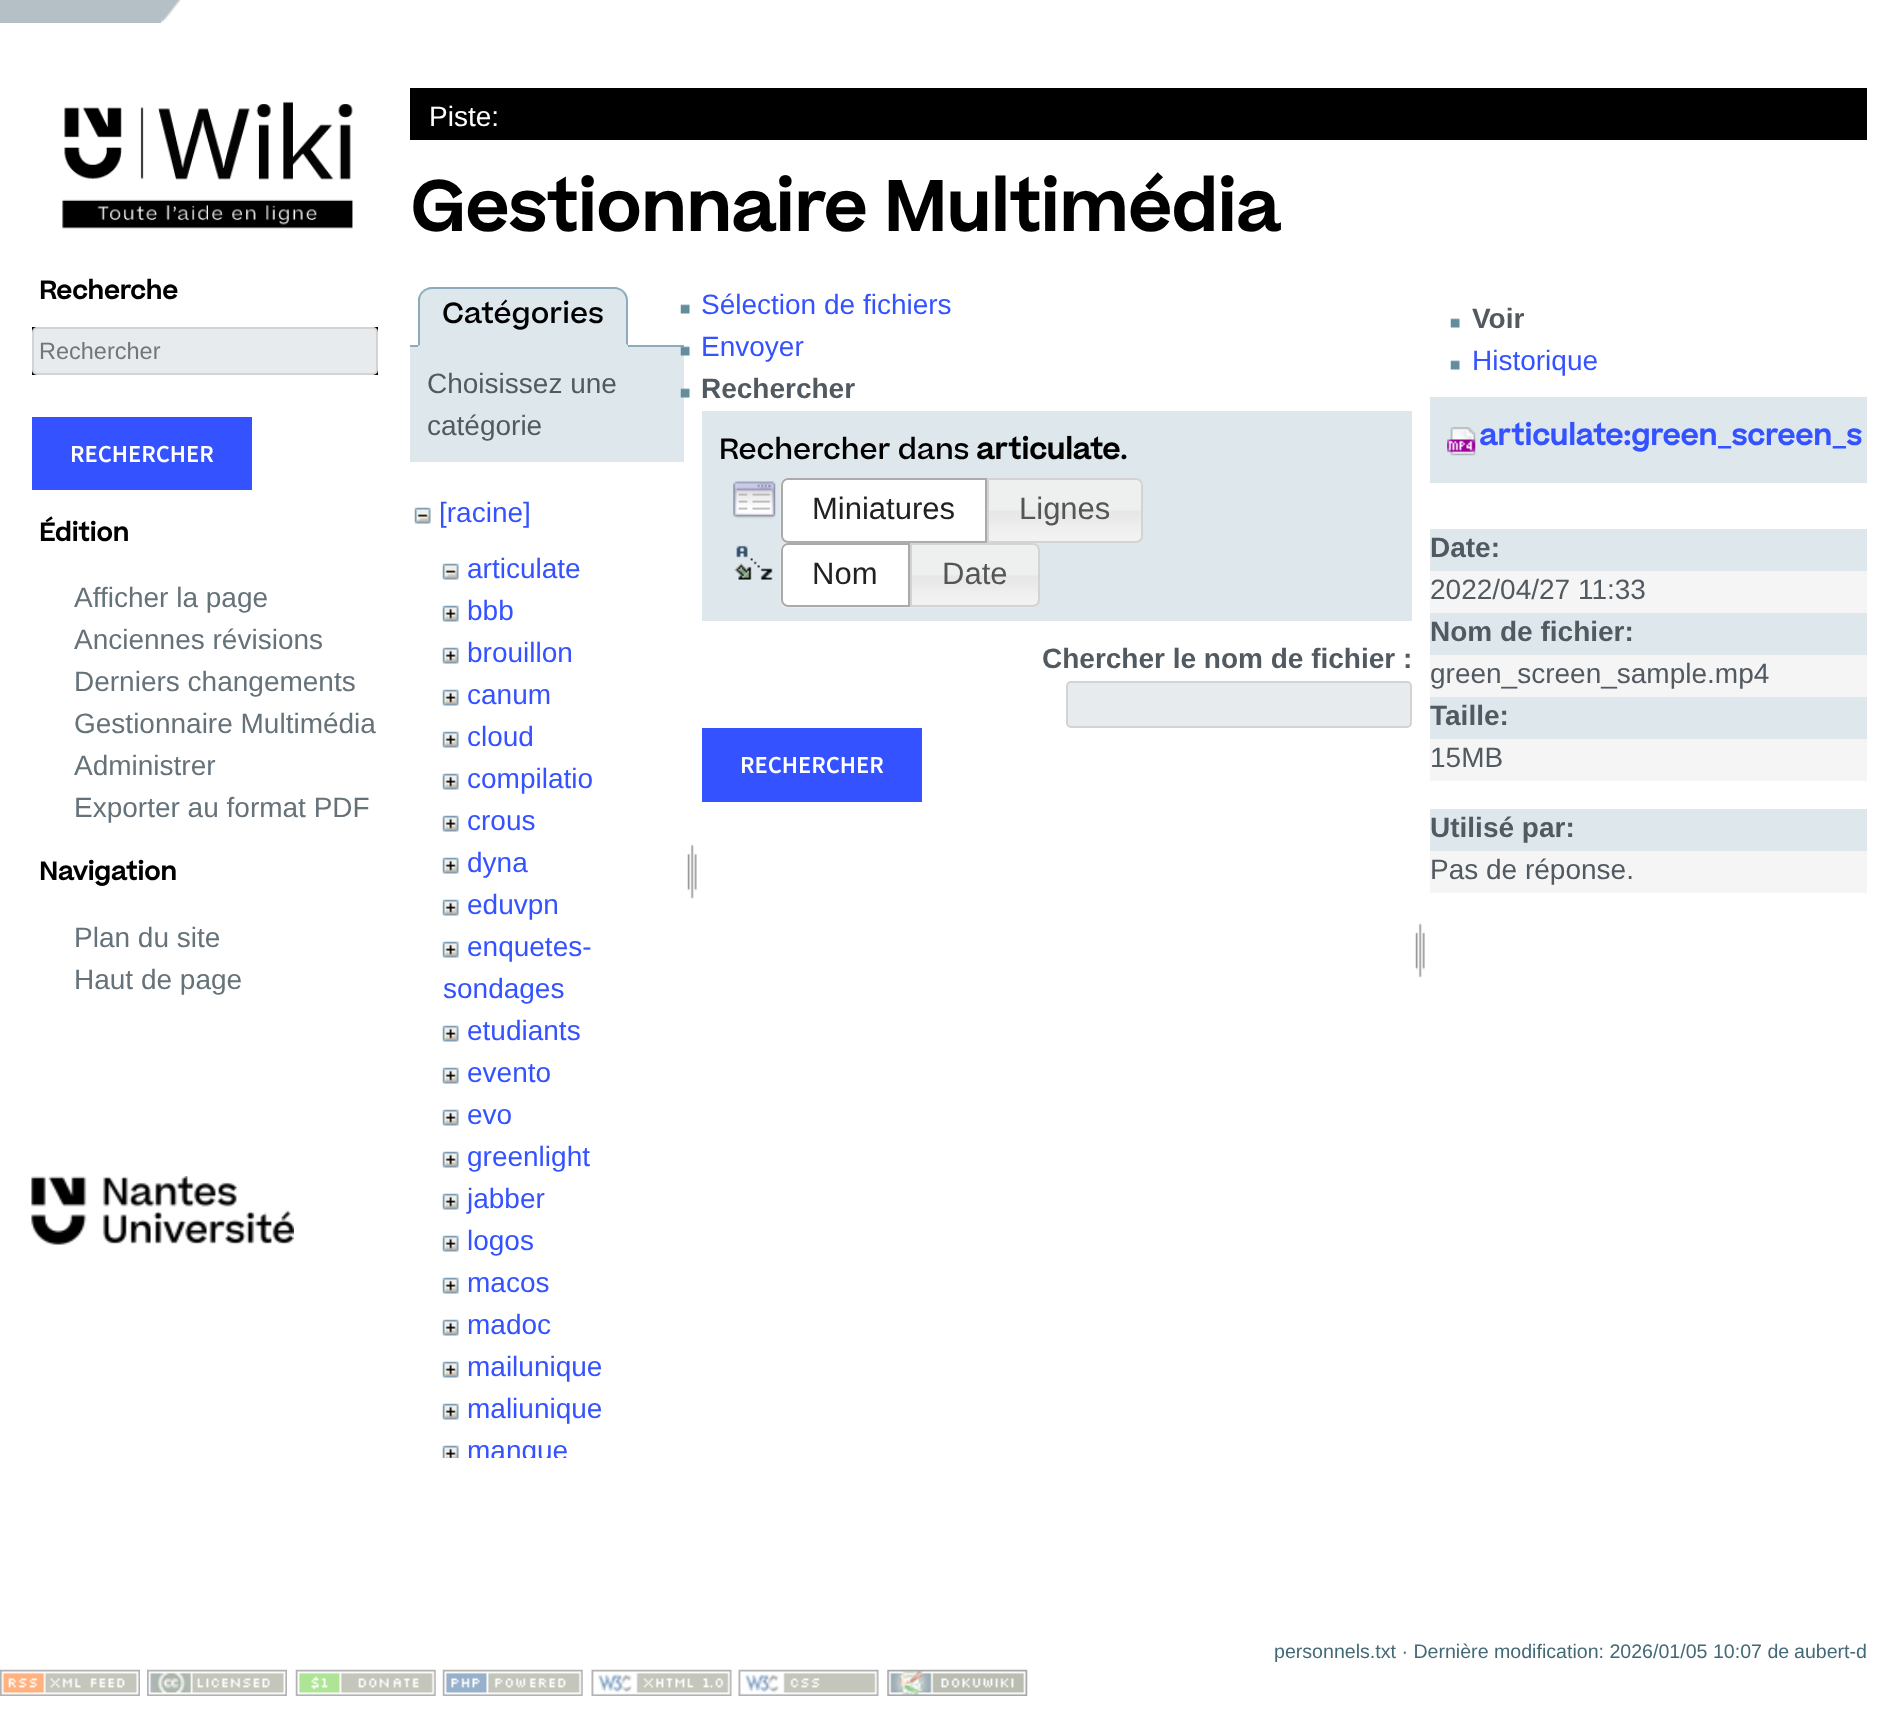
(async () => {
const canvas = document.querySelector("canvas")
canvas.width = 1898
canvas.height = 1711
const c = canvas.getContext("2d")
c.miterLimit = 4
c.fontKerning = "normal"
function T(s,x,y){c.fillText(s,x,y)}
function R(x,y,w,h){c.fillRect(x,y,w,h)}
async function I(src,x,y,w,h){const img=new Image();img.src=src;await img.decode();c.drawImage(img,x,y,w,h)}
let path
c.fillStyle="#fff"
R(0,0,1898,1711)
c.fillStyle="#b5c0c6"
R(0,0,161,23)
await I("1.png",161,0,20,23)
await I("2.png",62,101,291,128)
c.font="bold 24.5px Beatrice"
c.fillStyle="#000"
T("Recherche",39,299)
R(32,327,346,48)
c.fillStyle="#e7ebee"
c.beginPath()
c.roundRect(33,328,344,46,4)
c.fill()
c.strokeStyle="#d3d3d3"
c.lineWidth=2
c.stroke()
c.font="23.5px Liberation Sans"
c.fillStyle="#757575"
T("Rechercher",39,359)
c.fillStyle="#3452ff"
R(32,417,220,73)
c.font="600 24.5px Source Sans Pro"
c.fillStyle="#fff"
T("RECHERCHER",70,462)
c.font="bold 24.5px Beatrice"
c.fillStyle="#000"
T("Édition",39,541)
c.font="28px Liberation Sans"
c.fillStyle="#657279"
T("Afficher la page",74,607)
T("Anciennes révisions",74,649)
T("Derniers changements",74,691)
T("Gestionnaire Multimédia",74,733)
T("Administrer",74,775)
T("Exporter au format PDF",74,817)
c.font="bold 24.5px Beatrice"
c.fillStyle="#000"
T("Navigation",39,880)
c.font="28px Liberation Sans"
c.fillStyle="#657279"
T("Plan du site",74,947)
T("Haut de page",74,989)
await I("3.png",31,1176,263,69)
c.fillStyle="#000"
R(410,88,1457,52)
c.fillStyle="#fff"
T("Piste:",429,126)
c.font="bold 67.4px Beatrice"
c.fillStyle="#000"
T("Gestionnaire Multimédia",410,231)
c.fillStyle="#8cacbb"
R(410,345,274,2)
c.fillStyle="#dee7ec"
c.beginPath()
c.roundRect(418,287,210,60,[14,14,0,0])
c.fill()
c.fillStyle="#8cacbb"
path = new Path2D("M432 287c-4 0-7 2-10 4l2 1c2-2 5-3 8-3h182c4 0 7 1 9 4l1-2c-2-2-6-4-10-4z")
c.fill(path)
path = new Path2D("M624 291c3 3 4 6 4 10v45l-2-2v-43c0-3-1-6-3-8z")
c.fill(path)
c.fillStyle="#dee7ec"
path = new Path2D("M628 346h-209l1-1h206v-1z")
c.fill(path)
c.fillStyle="#8cacbb"
path = new Path2D("M418 298c1-2 2-5 4-7l2 1c-3 2-4 5-4 9v44l-2 1z")
c.fill(path)
c.font="500 28px Beatrice"
c.fillStyle="#000"
T("Catégories",442,323)
c.fillStyle="#dee7ec"
R(410,347,274,115)
c.font="28px Liberation Sans"
c.fillStyle="#515961"
T("Choisissez une",427,393)
T("catégorie",427,435)
await I("4.png",414,507,17,17)
c.fillStyle="#3452ff"
T("[racine]",439,522)
await I("4.png",442,563,17,17)
T("articulate",467,578)
await I("5.png",442,605,17,17)
T("bbb",467,620)
await I("5.png",442,647,17,17)
T("brouillon",467,662)
await I("5.png",442,689,17,17)
T("canum",467,704)
await I("5.png",442,731,17,17)
T("cloud",467,746)
await I("5.png",442,773,17,17)
T("compilatio",467,788)
await I("5.png",442,815,17,17)
T("crous",467,830)
await I("5.png",442,857,17,17)
T("dyna",467,872)
await I("5.png",442,899,17,17)
T("eduvpn",467,914)
await I("5.png",442,941,17,17)
T("enquetes-",467,956)
T("sondages",443,998)
await I("5.png",442,1025,17,17)
T("etudiants",467,1040)
await I("5.png",442,1067,17,17)
T("evento",467,1082)
await I("5.png",442,1109,17,17)
T("evo",467,1124)
await I("5.png",442,1151,17,17)
T("greenlight",467,1166)
await I("5.png",442,1193,17,17)
T("jabber",467,1208)
await I("5.png",442,1235,17,17)
T("logos",467,1250)
await I("5.png",442,1277,17,17)
T("macos",467,1292)
await I("5.png",442,1319,17,17)
T("madoc",467,1334)
await I("5.png",442,1361,17,17)
T("mailunique",467,1376)
await I("5.png",442,1403,17,17)
T("maliunique",467,1418)
await I("6.png",442,1445,17,13)
c.save()
c.beginPath()
c.rect(410,480,274,978)
c.clip()
T("mangue",467,1460)
c.restore()
await I("7.png",687,844,10,55)
await I("8.png",680,304,10,10)
T("Sélection de fichiers",701,314)
await I("9.png",680,346,10,10)
T("Envoyer",701,356)
await I("10.png",680,388,10,10)
c.font="bold 28px Liberation Sans"
c.fillStyle="#515961"
T("Rechercher",701,398)
c.fillStyle="#dee7ec"
R(702,411,710,210)
c.font="500 28px Beatrice"
c.fillStyle="#000"
T("Rechercher dans",719,459)
c.font="bold 28px Beatrice"
T("articulate",976,459)
c.font="500 28px Beatrice"
T(".",1120,459)
await I("11.png",733,481,43,38)
c.fillStyle="#fff"
c.beginPath()
c.roundRect(781,478,206,65,[7,0,0,7])
c.fill()
await I("12.png",780,478,7,65)
c.beginPath()
c.roundRect(782,479,204,63,[6,0,0,6])
c.strokeStyle="#aaa"
c.stroke()
c.font="31px Liberation Sans"
c.fillStyle="#212121"
T("Miniatures",812,519)
await I("13.png",989,478,154,65)
c.beginPath()
c.roundRect(988,479,154,63,[0,6,6,0])
c.strokeStyle="#d3d3d3"
c.stroke()
c.fillStyle="#555"
T("Lignes",1019,519)
await I("14.png",734,545,39,35)
await I("15.png",780,542,130,66)
c.beginPath()
c.roundRect(782,544,127,62,[6,0,0,6])
c.strokeStyle="#aaa"
c.stroke()
c.fillStyle="#212121"
T("Nom",812,584)
await I("16.png",910,542,129,66)
c.beginPath()
c.roundRect(911,544,128,62,[0,6,6,0])
c.strokeStyle="#d3d3d3"
c.stroke()
c.fillStyle="#555"
T("Date",942,584)
c.font="bold 28px Liberation Sans"
c.fillStyle="#515961"
T("Chercher le nom de fichier :",1042,668)
c.fillStyle="#e7ebee"
c.beginPath()
c.roundRect(1067,682,344,45,4)
c.fill()
c.stroke()
c.fillStyle="#3452ff"
R(702,728,220,74)
c.font="600 24.5px Source Sans Pro"
c.fillStyle="#fff"
T("RECHERCHER",740,773)
await I("17.png",1415,922,10,56)
await I("8.png",1450,318,10,10)
c.font="bold 28px Liberation Sans"
c.fillStyle="#515961"
T("Voir",1472,328)
await I("8.png",1450,360,10,10)
c.font="28px Liberation Sans"
c.fillStyle="#3452ff"
T("Historique",1472,370)
c.fillStyle="#dee7ec"
R(1430,397,437,86)
await I("18.png",1447,427,29,29)
c.font="bold 28px Beatrice"
c.fillStyle="#3452ff"
T("articulate:green_screen_s",1479,445)
c.fillStyle="#dee7ec"
R(1430,529,437,42)
c.font="bold 28px Liberation Sans"
c.fillStyle="#515961"
T("Date:",1430,557)
c.fillStyle="#f5f5f5"
R(1430,571,437,42)
c.font="28px Liberation Sans"
c.fillStyle="#515961"
T("2022/04/27 11:33",1430,599)
c.fillStyle="#dee7ec"
R(1430,613,437,42)
c.font="bold 28px Liberation Sans"
c.fillStyle="#515961"
T("Nom de fichier:",1430,641)
c.fillStyle="#f5f5f5"
R(1430,655,437,42)
c.font="28px Liberation Sans"
c.fillStyle="#515961"
T("green_screen_sample.mp4",1430,683)
c.fillStyle="#dee7ec"
R(1430,697,437,42)
c.font="bold 28px Liberation Sans"
c.fillStyle="#515961"
T("Taille:",1430,725)
c.fillStyle="#f5f5f5"
R(1430,739,437,42)
c.font="28px Liberation Sans"
c.fillStyle="#515961"
T("15MB",1430,767)
c.fillStyle="#dee7ec"
R(1430,809,437,42)
c.font="bold 28px Liberation Sans"
c.fillStyle="#515961"
T("Utilisé par:",1430,837)
c.fillStyle="#f5f5f5"
R(1430,851,437,42)
c.font="28px Liberation Sans"
c.fillStyle="#515961"
T("Pas de réponse.",1430,879)
c.font="19.6px Liberation Sans"
c.fillStyle="#436976"
T("personnels.txt · Dernière modification: 2026/01/05 10:07 de",1274,1658)
T("aubert-d",1794,1658)
await I("19.png",0,1669,140,27)
await I("20.png",147,1669,140,27)
await I("21.png",295,1669,141,27)
await I("22.png",442,1669,141,27)
await I("23.png",591,1669,141,27)
await I("24.png",738,1669,141,27)
await I("25.png",887,1669,141,27)
})()
